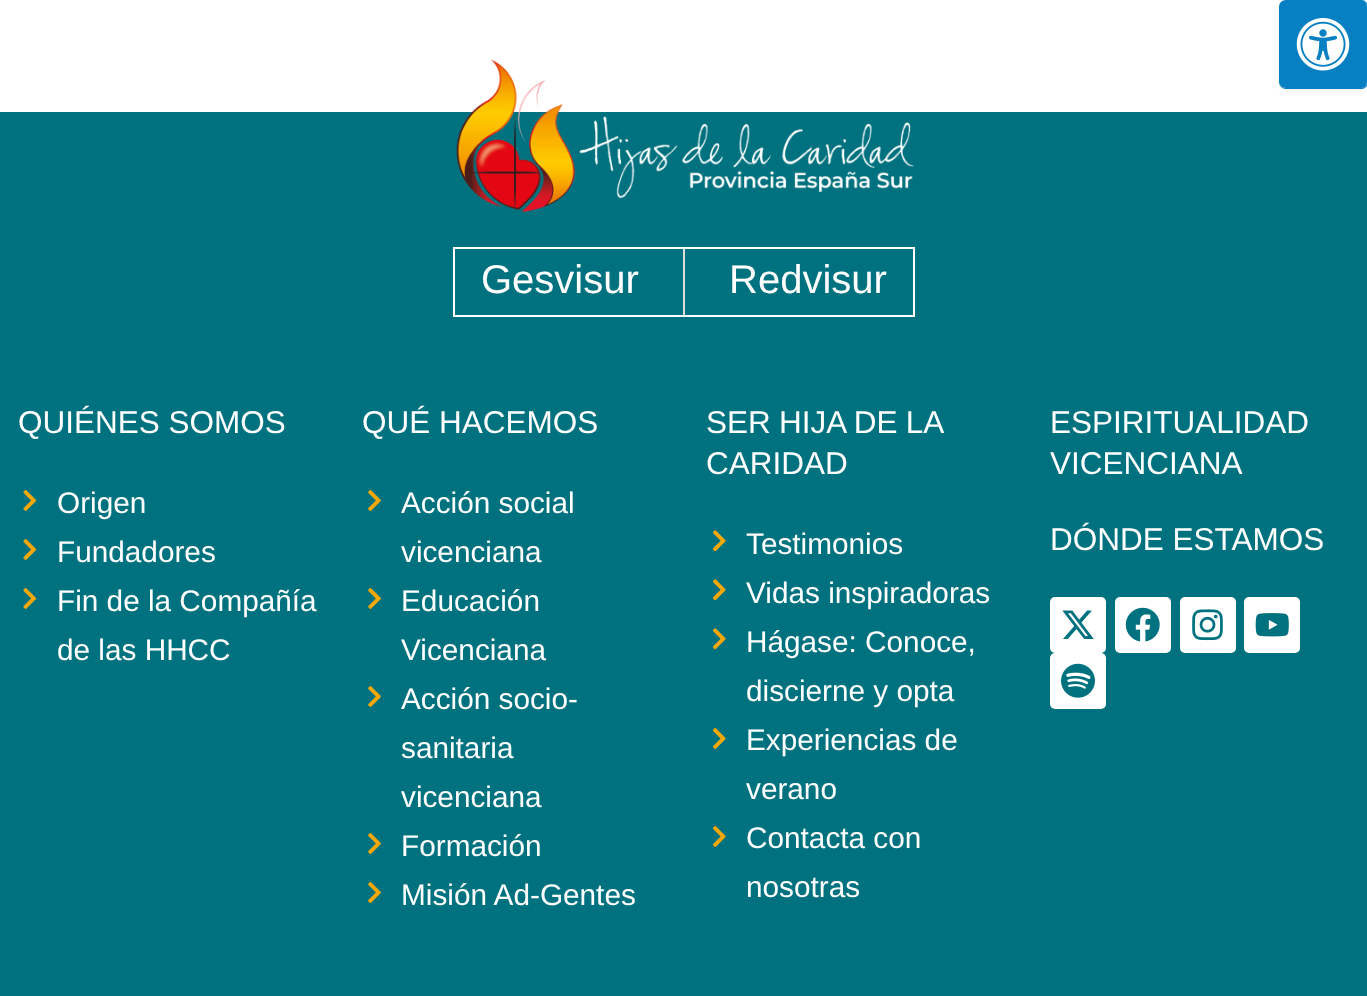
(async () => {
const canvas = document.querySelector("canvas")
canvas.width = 1367
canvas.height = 996
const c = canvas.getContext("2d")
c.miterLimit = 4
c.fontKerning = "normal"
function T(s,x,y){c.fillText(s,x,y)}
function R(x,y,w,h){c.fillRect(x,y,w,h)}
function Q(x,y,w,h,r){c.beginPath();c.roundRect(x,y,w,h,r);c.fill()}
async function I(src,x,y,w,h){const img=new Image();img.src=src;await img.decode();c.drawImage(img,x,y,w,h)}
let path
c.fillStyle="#fff"
R(0,0,1367,996)
c.fillStyle="#0000000d"
c.filter="blur(2px)"
c.beginPath()
c.roundRect(1279,2,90,89,7)
c.fill()
c.filter="none"
c.fillStyle="#0780c3"
path = new Path2D("M1286 0h76c2 0 5 3 5 7v75c0 3-3 6-5 6h-76c-4 0-7-3-7-6v-75c0-4 3-7 7-7z")
c.fill(path)
path = new Path2D("M1286 0h76c3 0 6 3 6 7v75c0 4-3 7-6 7h-76c-4 0-7-3-7-7v-75c0-4 3-7 7-7zm0 0h76c2 0 5 3 5 7v75c0 3-3 6-5 6h-76c-4 0-7-3-7-6v-75c0-4 3-7 7-7z")
c.fill(path,"evenodd")
await I("1.png",1296,18,54,53)
c.fillStyle="#00717e"
R(0,112,1367,884)
await I("2.png",456,59,458,153)
c.strokeStyle="#fff"
c.lineWidth=2
c.strokeRect(454,248,460,68)
c.font="40px Liberation Sans"
c.fillStyle="#fff"
T("Gesvisur",481,293)
c.fillStyle="#ddd"
R(683,249,2,66)
c.fillStyle="#fff"
T("Redvisur",729,293)
c.font="31.5px Liberation Sans"
T("QUIÉNES SOMOS",18,433)
await I("3.png",23,490,14,21)
c.font="29.75px Liberation Sans"
T("Origen",57,513)
await I("3.png",23,539,14,21)
T("Fundadores",57,562)
await I("3.png",23,588,14,21)
T("Fin de la Compañía",57,611)
T("de las HHCC",57,660)
c.font="31.5px Liberation Sans"
T("QUÉ HACEMOS",362,433)
await I("4.png",368,490,13,21)
c.font="29.75px Liberation Sans"
T("Acción social",401,513)
T("vicenciana",401,562)
await I("4.png",368,588,13,21)
T("Educación",401,611)
T("Vicenciana",401,660)
await I("4.png",368,686,13,21)
T("Acción socio-",401,709)
T("sanitaria",401,758)
T("vicenciana",401,807)
await I("4.png",368,833,13,21)
T("Formación",401,856)
await I("4.png",368,882,13,21)
T("Misión Ad-Gentes",401,905)
c.wordSpacing="-0.5px"
c.font="31.5px Liberation Sans"
T("SER HIJA DE LA",706,433)
c.wordSpacing="0px"
T("CARIDAD",706,474)
await I("5.png",712,530,14,22)
c.font="29.75px Liberation Sans"
T("Testimonios",746,554)
await I("5.png",712,579,14,22)
T("Vidas inspiradoras",746,603)
await I("5.png",712,628,14,22)
T("Hágase: Conoce,",746,652)
T("discierne y opta",746,701)
await I("6.png",712,728,14,21)
T("Experiencias de",746,750)
T("verano",746,799)
await I("6.png",712,826,14,21)
T("Contacta con",746,848)
T("nosotras",746,897)
c.font="31.5px Liberation Sans"
T("ESPIRITUALIDAD",1050,433)
T("VICENCIANA",1050,474)
T("DÓNDE ESTAMOS",1050,550)
Q(1050,597,56,56,5)
await I("7.png",1062,610,32,29)
Q(1115,597,56,56,5)
await I("8.png",1125,607,35,35)
Q(1180,597,56,56,5)
await I("9.png",1192,609,31,32)
Q(1244,597,56,56,5)
await I("10.png",1255,613,34,24)
Q(1050,653,56,56,5)
await I("11.png",1061,663,34,35)
})()
